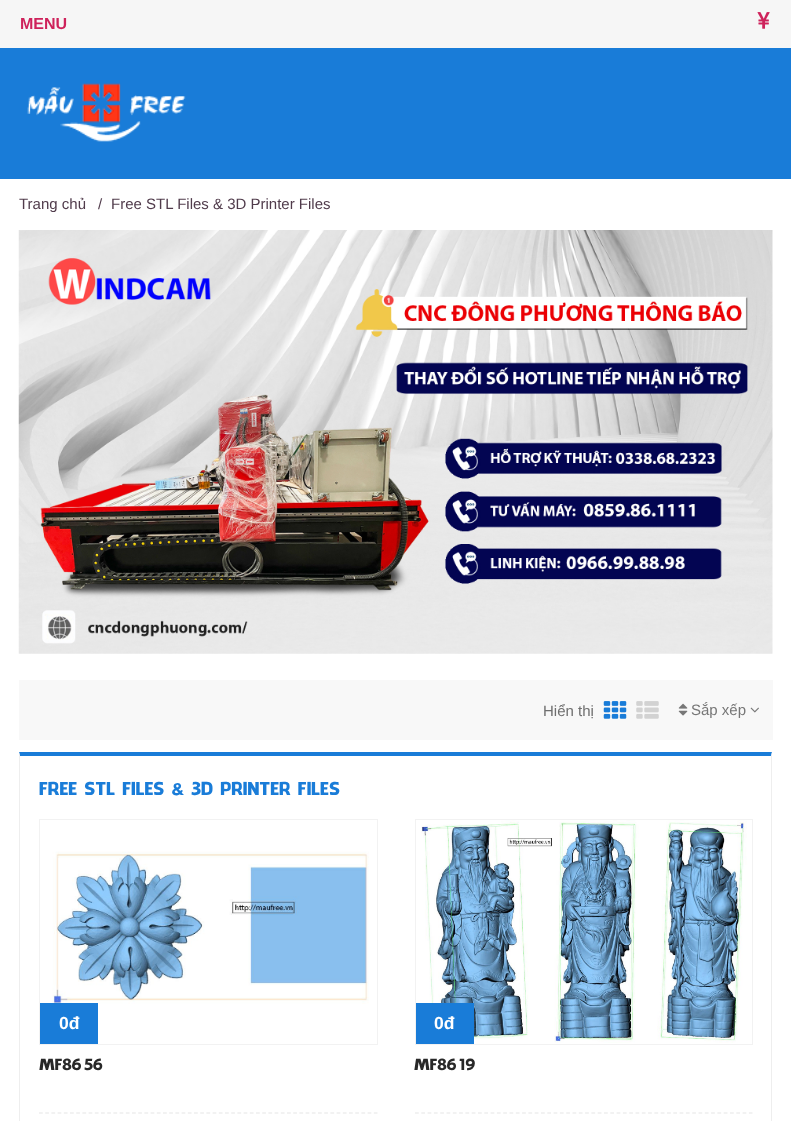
(async () => {
const canvas = document.querySelector("canvas")
canvas.width = 791
canvas.height = 1121
const c = canvas.getContext("2d")
c.miterLimit = 4
c.fontKerning = "normal"
function T(s,x,y){c.fillText(s,x,y)}
function R(x,y,w,h){c.fillRect(x,y,w,h)}
async function I(src,x,y,w,h){const img=new Image();img.src=src;await img.decode();c.drawImage(img,x,y,w,h)}
let path
c.fillStyle="#fff"
R(0,0,791,1121)
c.fillStyle="#f6f6f6"
R(0,0,791,48)
await I("1.png",757,12,13,17)
c.font="bold 16px Liberation Sans"
c.fillStyle="#ce225b"
T("MENU",20,29)
c.fillStyle="#197cd8"
R(0,48,791,131)
await I("2.png",27,83,159,59)
c.font="15px Liberation Sans"
c.fillStyle="#503b4b"
T("Trang chủ",19,209)
T("/",98,209)
T("Free STL Files & 3D Printer Files",111,209)
await I("3.png",18,230,755,424)
c.fillStyle="#f8f8f8"
R(19,680,754,60)
c.fillStyle="#6f6f6f"
T("Hiển thị",543,716)
await I("4.png",603,701,24,18)
await I("5.png",636,701,23,18)
await I("6.png",678,703,10,13)
c.fillStyle="#777"
T("Sắp xếp",691,715)
await I("7.png",750,707,9,6)
c.fillStyle="#197cd8"
path = new Path2D("M19 752h753l-1 4h-751z")
c.fill(path)
c.fillStyle="#eee"
path = new Path2D("M772 752v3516l-1-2v-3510z")
c.fill(path)
path = new Path2D("M19 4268v-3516l1 4v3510z")
c.fill(path)
c.font="17.5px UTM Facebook"
c.fillStyle="#197cd8"
T("FREE STL FILES & 3D PRINTER FILES",39,795)
c.strokeStyle="#f2f2f2"
c.strokeRect(39.5,819.5,338,225)
await I("8.png",52,851,317,153)
R(40,1003,58,41)
c.font="bold 17.5px Liberation Sans"
c.fillStyle="#fff"
T("0đ",59,1029)
path = new Path2D("M39 1113h338.5")
c.strokeStyle="#e5e5e5"
c.lineWidth=1.2
c.setLineDash([3.75,2.45])
c.stroke(path)
c.font="15px UTM Facebook"
c.fillStyle="#282828"
T("MF8656",39,1070)
c.strokeStyle="#f2f2f2"
c.lineWidth=1
c.setLineDash([])
c.strokeRect(415.5,819.5,337,225)
await I("9.png",421,820,326,223)
c.fillStyle="#197cd8"
R(416,1003,58,41)
c.font="bold 17.5px Liberation Sans"
c.fillStyle="#fff"
T("0đ",434,1029)
path = new Path2D("M415 1113h337.5")
c.strokeStyle="#e5e5e5"
c.lineWidth=1.2
c.setLineDash([3.75,2.55])
c.stroke(path)
c.font="15px UTM Facebook"
c.fillStyle="#282828"
T("MF8619",414,1070)
})()
